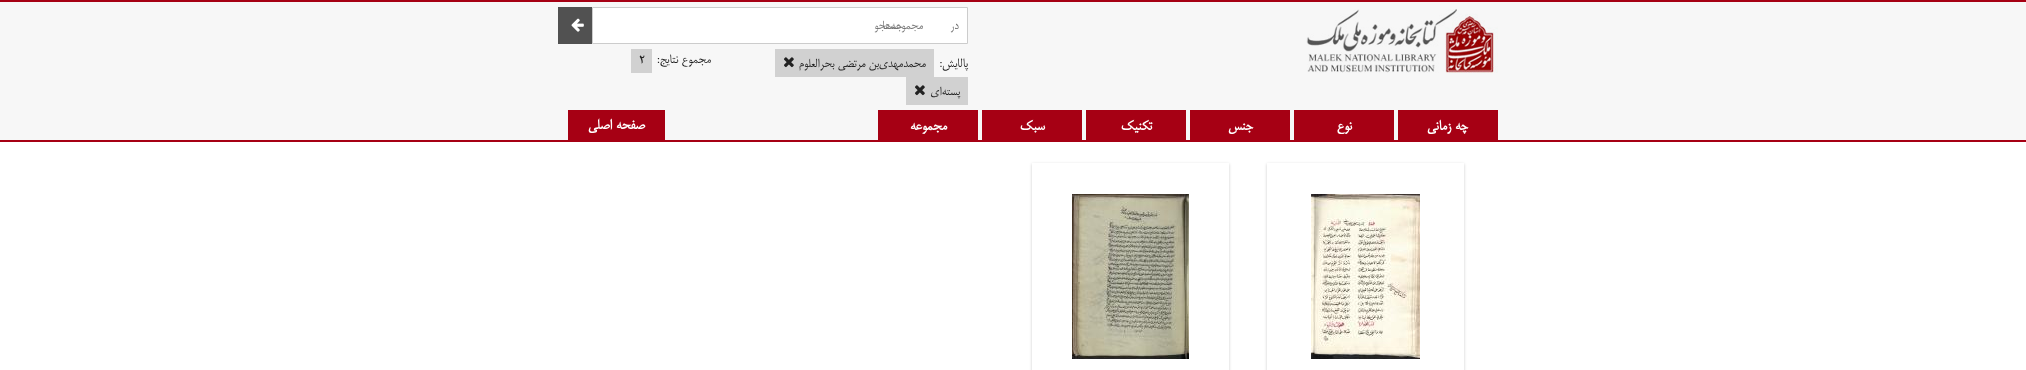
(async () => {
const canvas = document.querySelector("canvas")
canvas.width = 2026
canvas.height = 370
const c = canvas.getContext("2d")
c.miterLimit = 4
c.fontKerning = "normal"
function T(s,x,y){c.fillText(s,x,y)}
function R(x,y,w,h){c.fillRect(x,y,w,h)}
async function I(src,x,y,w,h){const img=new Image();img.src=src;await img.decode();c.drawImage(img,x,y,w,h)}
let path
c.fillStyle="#fff"
R(0,0,2026,370)
c.fillStyle="#f7f7f7"
R(0,2,2026,138)
c.fillStyle="#a60014"
R(0,0,2026,2)
R(0,140,2026,2)
await I("1.png",1306,9,192,64)
c.fillStyle="#fff"
c.beginPath()
c.rect(592.5,7.5,375,36)
c.fill()
c.strokeStyle="#ccc"
c.stroke()
c.direction="rtl"
c.font="14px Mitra"
c.fillStyle="#757575"
T("جستجو",903,29)
c.wordSpacing="24px"
T("در مجموعه‌ها",959,29)
c.fillStyle="#515151"
R(558,7,34,37)
await I("2.png",571,18,13,14)
c.wordSpacing="0px"
c.font="14.5px Mitra"
c.fillStyle="#222"
T("پالایش:",968,67)
c.fillStyle="#d1d1d1"
R(775,49,159,28)
c.font="14px Mitra"
c.fillStyle="#222"
T("محمدمهدی‌بن مرتضی بحرالعلوم",926,67)
await I("3.png",784,57,10,11)
c.fillStyle="#d1d1d1"
R(906,77,62,28)
c.fillStyle="#222"
T("پسته‌ای",960,95)
await I("3.png",915,85,10,11)
c.font="14.5px Mitra"
T("مجموع نتایج:",711,63)
c.fillStyle="#d1d1d1"
R(631,49,21,24)
c.direction="ltr"
c.font="bold 14px Mitra"
c.fillStyle="#222"
T("۲",639,63)
c.fillStyle="#a60014"
R(1398,110,100,30)
c.direction="rtl"
c.font="bold 16px Mitra"
c.fillStyle="#fff"
T("چه زمانی",1468,130)
c.fillStyle="#a60014"
R(1294,110,100,30)
c.fillStyle="#fff"
T("نوع",1352,130)
c.fillStyle="#a60014"
R(1190,110,100,30)
c.fillStyle="#fff"
T("جنس",1253,130)
c.fillStyle="#a60014"
R(1086,110,100,30)
c.fillStyle="#fff"
T("تکنیک",1152,130)
c.fillStyle="#a60014"
R(982,110,100,30)
c.fillStyle="#fff"
T("سبک",1045,130)
c.fillStyle="#a60014"
R(878,110,100,30)
c.fillStyle="#fff"
T("مجموعه",947,130)
c.fillStyle="#a60014"
R(568,110,97,30)
c.fillStyle="#fff"
T("صفحه اصلی",645,129)
c.save()
path = new Path2D("M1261 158h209v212h-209zm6 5h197v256h-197z")
c.clip(path,"evenodd")
c.fillStyle="#00000033"
c.filter="blur(1.5px)"
c.beginPath()
c.rect(1267,164,197,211)
c.fill()
c.filter="none"
c.restore()
await I("4.png",1311,194,109,165)
c.save()
path = new Path2D("M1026 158h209v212h-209zm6 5h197v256h-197z")
c.clip(path,"evenodd")
c.fillStyle="#00000033"
c.filter="blur(1.5px)"
c.beginPath()
c.rect(1032,164,197,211)
c.fill()
c.filter="none"
c.restore()
await I("5.png",1072,194,117,165)
})()
